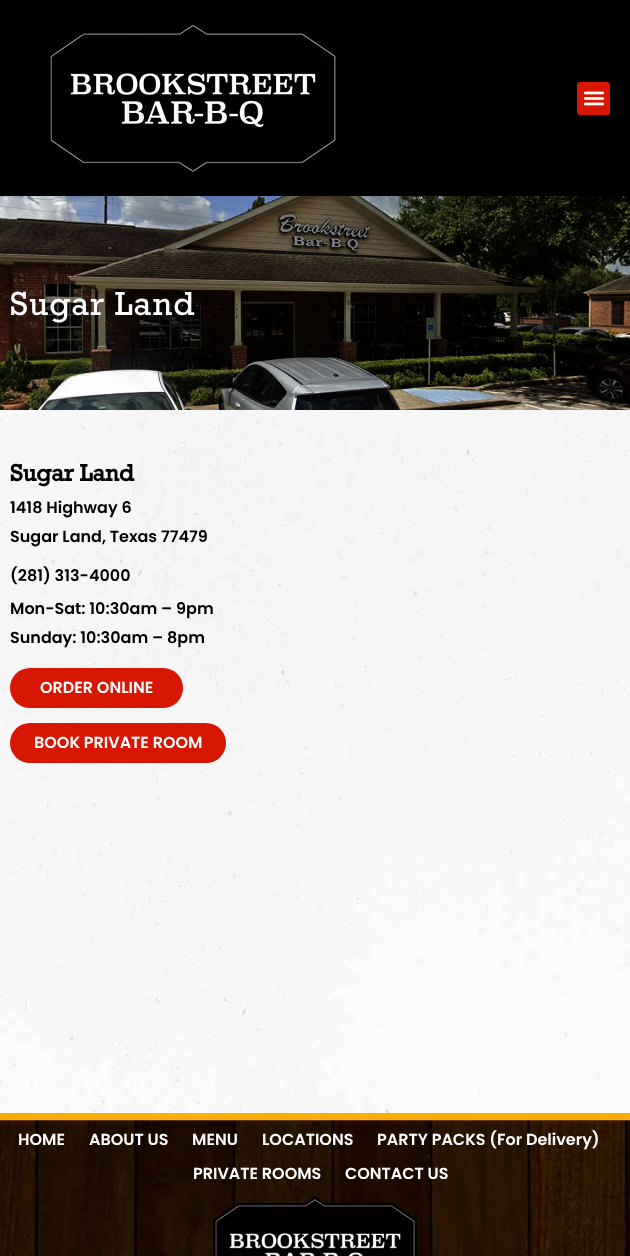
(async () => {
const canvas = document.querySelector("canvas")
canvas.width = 630
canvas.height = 1256
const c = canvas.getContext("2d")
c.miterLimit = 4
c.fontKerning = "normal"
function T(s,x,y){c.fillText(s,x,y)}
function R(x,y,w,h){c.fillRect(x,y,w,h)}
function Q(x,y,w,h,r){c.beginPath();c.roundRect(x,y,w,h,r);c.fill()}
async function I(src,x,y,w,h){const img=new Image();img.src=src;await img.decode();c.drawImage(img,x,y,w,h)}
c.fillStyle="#fff"
R(0,0,630,1256)
c.fillStyle="#000"
R(0,0,630,196)
await I("1.png",48,22,288,150)
c.fillStyle="#d71703"
Q(577,82,33,33,3)
await I("2.png",583,91,22,15)
await I("3.png",0,196,630,214)
c.letterSpacing="1px"
c.font="34px Rockwell"
c.fillStyle="#fff"
T("Sugar Land",10,315)
await I("4.png",0,410,630,703)
c.letterSpacing="0px"
c.font="bold 24px Rockwell"
c.fillStyle="#000"
T("Sugar Land",10,481)
c.font="600 16px Poppins"
T("1418 Highway 6",10,513)
T("Sugar Land, Texas 77479",10,542)
T("(281) 313-4000",10,581)
T("Mon-Sat: 10:30am – 9pm",10,614)
T("Sunday: 10:30am – 8pm",10,643)
c.fillStyle="#d71703"
Q(10,668,173,40,20)
c.fillStyle="#fff"
T("ORDER ONLINE",40,693)
c.fillStyle="#d71703"
Q(10,723,216,40,20)
c.fillStyle="#fff"
T("BOOK PRIVATE ROOM",34,748)
await I("5.png",0,1113,630,143)
T("HOME",18,1145)
T("ABOUT US",89,1145)
T("MENU",192,1145)
T("LOCATIONS",262,1145)
T("PARTY PACKS (For Delivery)",377,1145)
T("PRIVATE ROOMS",193,1179)
T("CONTACT US",345,1179)
await I("6.png",213,1196,204,60)
})()
